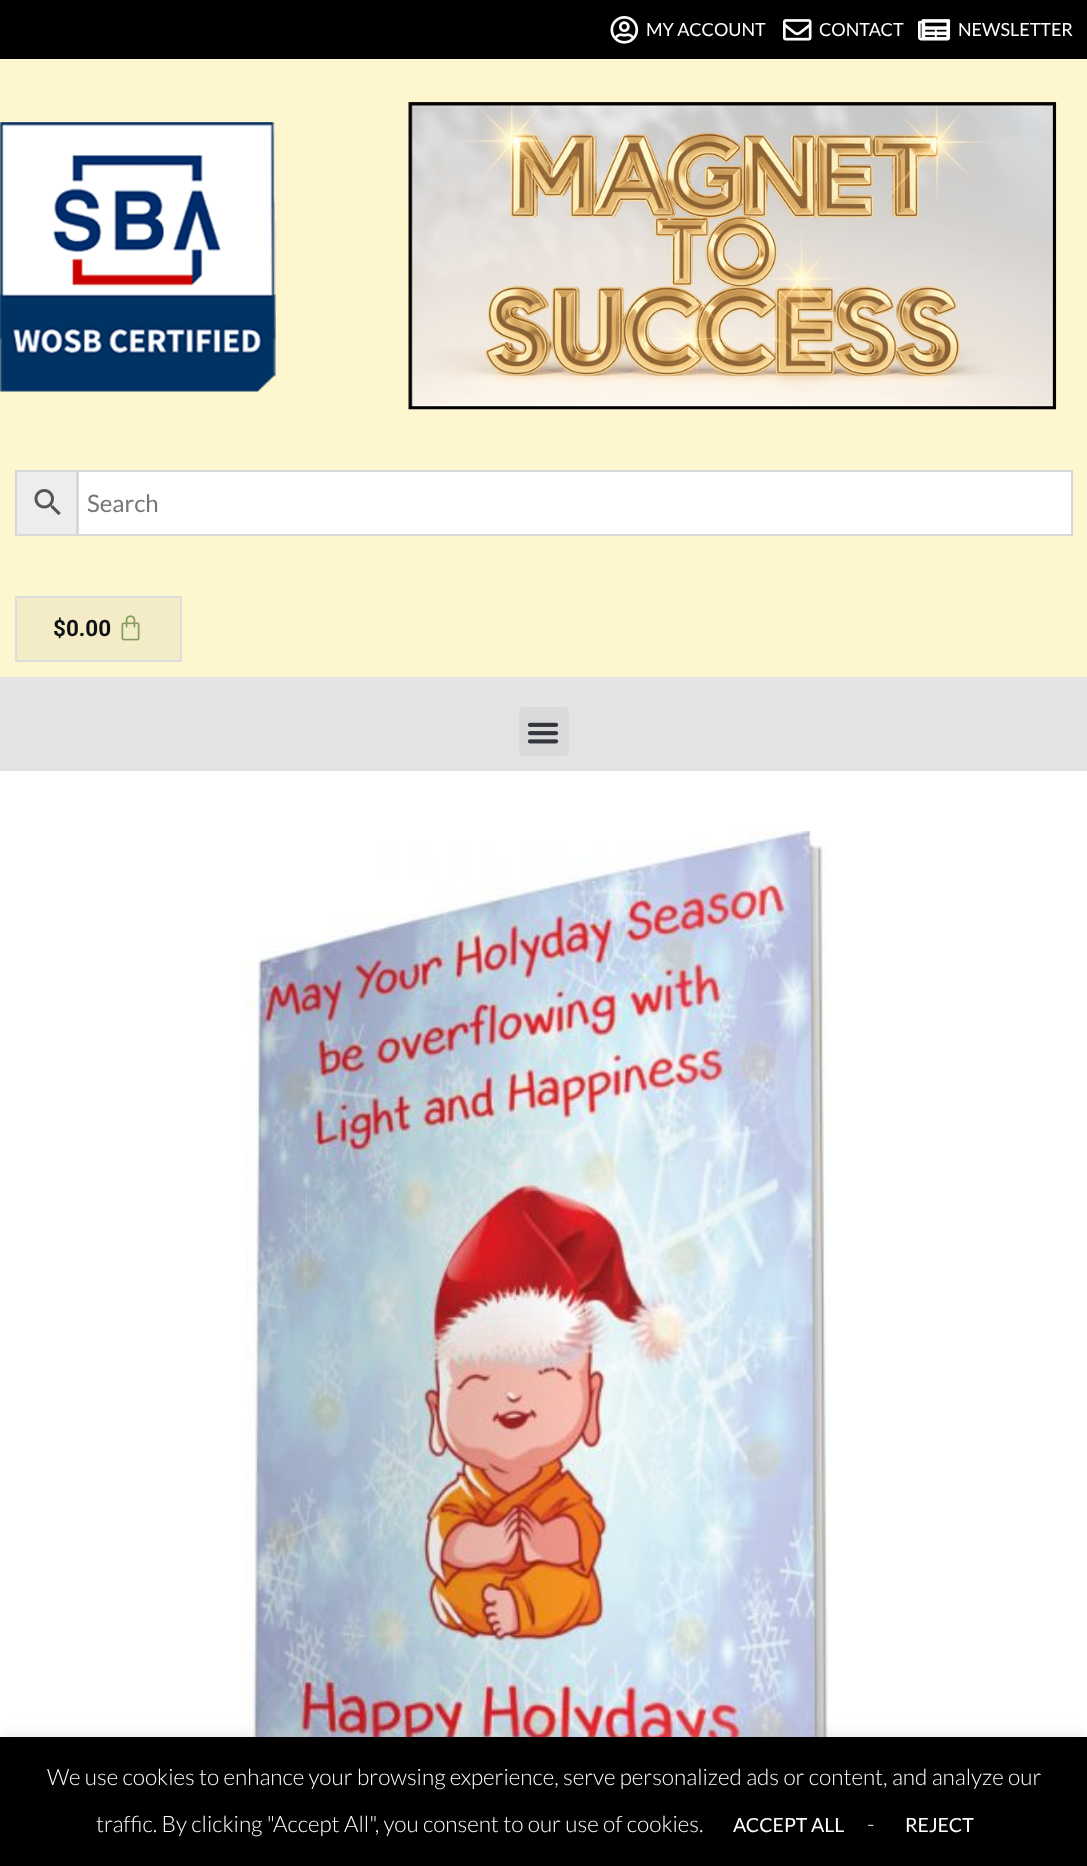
(async () => {
const canvas = document.querySelector("canvas")
canvas.width = 1087
canvas.height = 1866
const c = canvas.getContext("2d")
c.miterLimit = 4
c.fontKerning = "normal"
function T(s,x,y){c.fillText(s,x,y)}
function R(x,y,w,h){c.fillRect(x,y,w,h)}
function Q(x,y,w,h,r){c.beginPath();c.roundRect(x,y,w,h,r);c.fill()}
async function I(src,x,y,w,h){const img=new Image();img.src=src;await img.decode();c.drawImage(img,x,y,w,h)}
c.fillStyle="#fff"
R(0,0,1087,1866)
c.fillStyle="#000"
R(0,0,1087,59)
await I("1.png",610,16,29,28)
c.font="18px Lato"
c.fillStyle="#fff"
T("MY ACCOUNT",646,36)
await I("2.png",783,19,29,22)
T("CONTACT",819,36)
await I("3.png",918,19,33,22)
T("NEWSLETTER",958,36)
c.fillStyle="#fdf6ce"
R(0,59,1087,618)
await I("4.png",0,102,1057,308)
c.fillStyle="#ededed"
c.beginPath()
c.rect(16,471,61,64)
c.fill()
c.strokeStyle="#d8d8d8"
c.lineWidth=2
c.stroke()
await I("5.png",34,489,27,27)
c.fillStyle="#fff"
c.beginPath()
c.rect(78,471,994,64)
c.fill()
c.stroke()
c.font="24px Lato"
c.fillStyle="#757575"
T("Search",87,512)
c.fillStyle="#f3ecc6"
c.beginPath()
c.rect(16,597,165,64)
c.fill()
c.strokeStyle="#ddd"
c.stroke()
c.font="bold 22.5px Roboto"
c.fillStyle="#111"
T("$0.00",53,636)
await I("6.png",121,615,19,26)
c.fillStyle="#e4e4e4"
R(0,677,1087,94)
c.fillStyle="#d9d9d9"
Q(519,707,50,49,5)
await I("7.png",527,722,32,22)
await I("8.png",245,831,734,906)
c.fillStyle="#acabab4d"
c.filter="blur(7.5px)"
c.beginPath()
c.rect(0,1736,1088,129)
c.fill()
c.filter="none"
c.fillStyle="#000"
R(0,1737,1087,129)
c.font="300 22.5px Lato"
c.fillStyle="#fff"
T("We use cookies to enhance your browsing experience, serve personalized ads or content, and analyze our",47,1785)
T("traffic. By clicking \"Accept All\", you consent to our use of cookies.",96,1832)
c.font="19.5px Lato"
T("ACCEPT ALL",733,1832)
c.font="300 22.5px Lato"
T("-",867,1832)
c.font="19.5px Lato"
T("REJECT",905,1832)
})()
